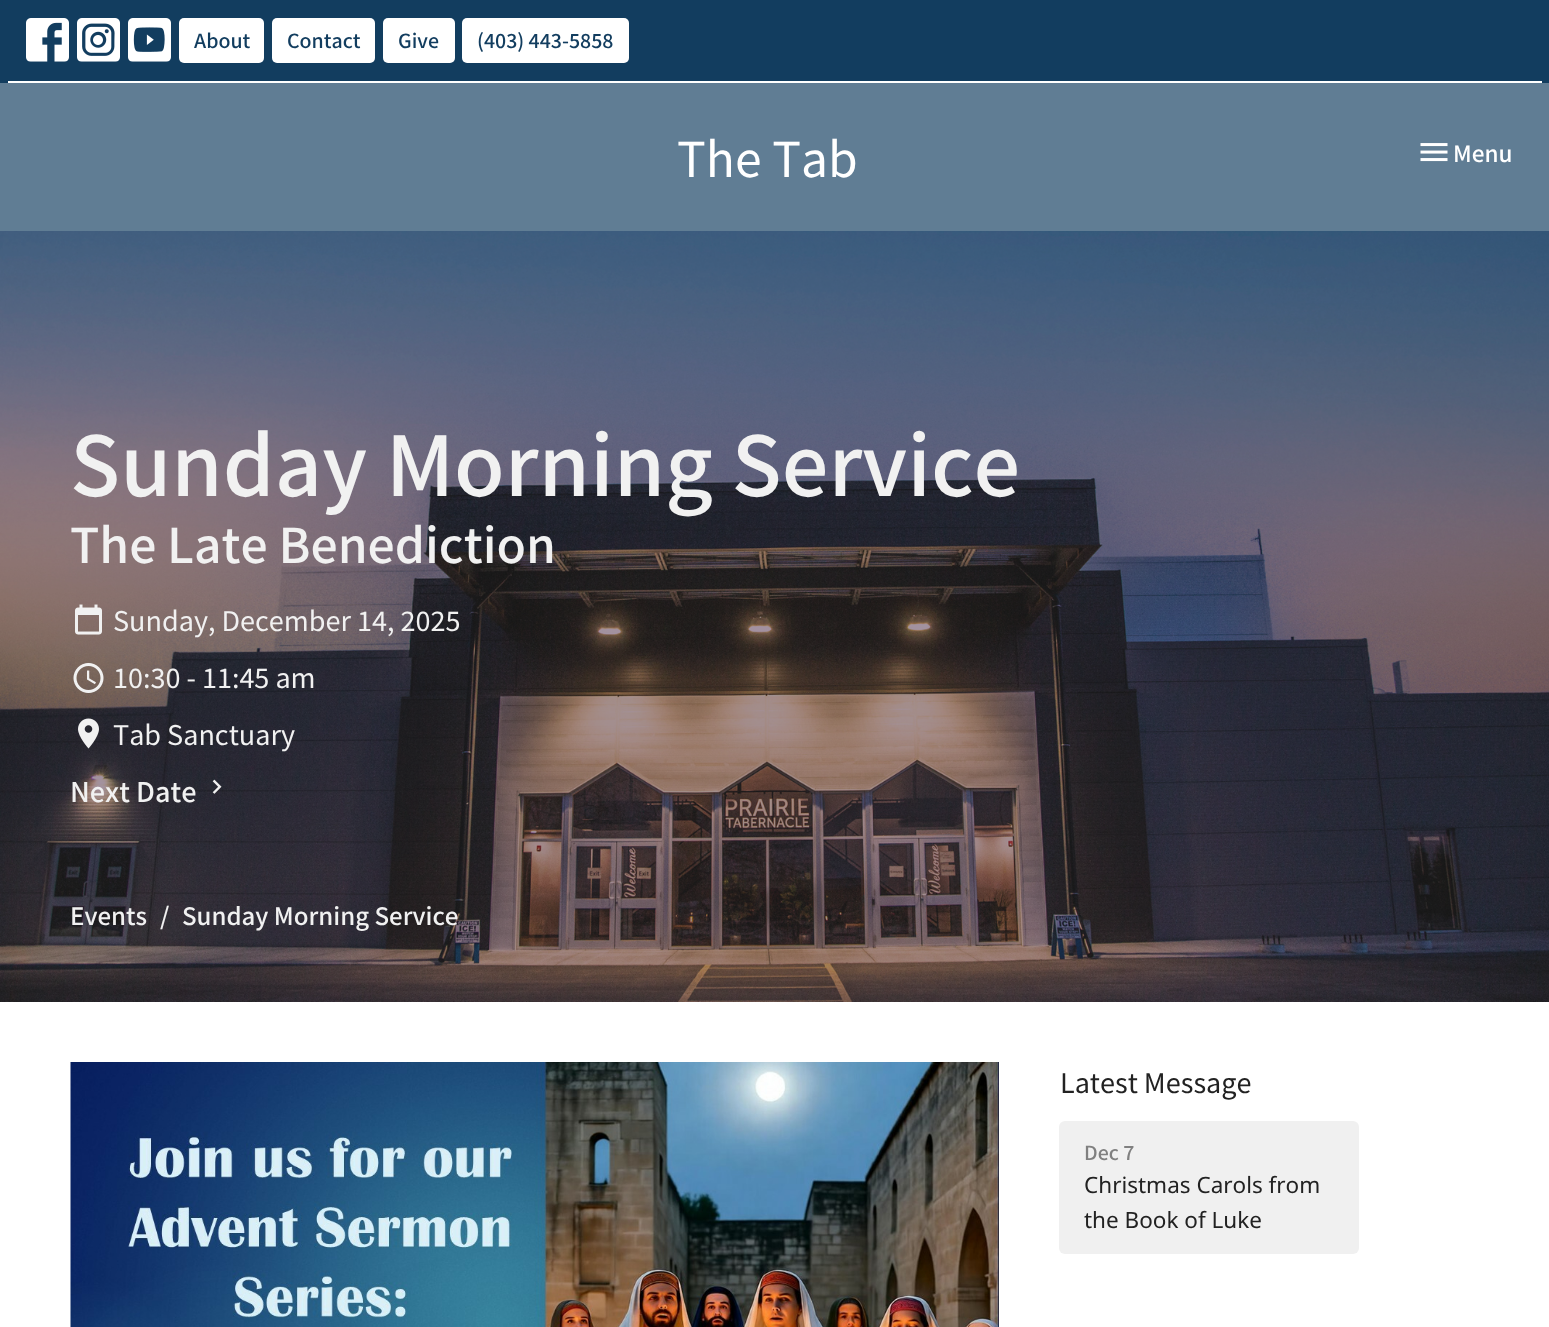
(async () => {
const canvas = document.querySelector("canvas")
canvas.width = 1549
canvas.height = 1327
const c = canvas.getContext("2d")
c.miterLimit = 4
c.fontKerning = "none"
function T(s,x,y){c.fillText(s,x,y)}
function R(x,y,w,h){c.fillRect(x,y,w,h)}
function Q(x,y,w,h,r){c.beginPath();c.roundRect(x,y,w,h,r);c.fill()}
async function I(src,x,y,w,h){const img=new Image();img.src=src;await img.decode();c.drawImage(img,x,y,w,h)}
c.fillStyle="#fff"
R(0,0,1549,1327)
c.fillStyle="#123d5f"
R(0,0,1549,83)
c.fillStyle="#fff"
R(8,81,1534,2)
await I("1.png",26,18,43,44)
await I("2.png",77,18,43,44)
await I("3.png",128,18,43,44)
Q(179,18,85,45,5)
c.font="500 19.5px Noto Sans JP"
c.fillStyle="#123d5f"
T("About",194,48)
c.fillStyle="#fff"
Q(272,18,103,45,5)
c.fillStyle="#123d5f"
T("Contact",287,48)
c.fillStyle="#fff"
Q(383,18,72,45,5)
c.fillStyle="#123d5f"
T("Give",398,48)
c.fillStyle="#fff"
Q(462,18,167,45,5)
c.fillStyle="#123d5f"
T("(403) 443-5858",477,48)
c.fillStyle="#607d94"
R(0,83,1549,148)
c.font="48px Noto Sans JP"
c.fillStyle="#fff"
T("The Tab",677,177)
await I("4.png",1420,143,28,19)
c.font="500 22.5px Noto Sans JP"
T("Menu",1453,162)
await I("5.png",0,231,1549,771)
c.font="500 82.5px Noto Sans JP"
c.fillStyle="#f1f1f1"
T("Sunday Morning Service",70,496)
c.font="500 48px Noto Sans JP"
T("The Late Benediction",70,563)
await I("6.png",75,604,27,31)
c.font="27px Noto Sans JP"
T("Sunday, December 14, 2025",113,631)
await I("7.png",73,663,31,30)
T("10:30 - 11:45 am",113,688)
await I("8.png",78,718,21,31)
T("Tab Sanctuary",113,745)
c.font="500 27px Noto Sans JP"
T("Next Date",70,802)
await I("9.png",212,779,10,15)
c.font="500 24px Noto Sans JP"
T("Events",70,925)
T("/",160,925)
T("Sunday Morning Service",182,925)
await I("10.png",70,1062,929,265)
c.font="27px Noto Sans JP"
c.fillStyle="#222"
T("Latest Message",1060,1093)
c.fillStyle="#f0f0f0"
Q(1059,1121,300,133,6)
c.font="500 19.5px Noto Sans JP"
c.fillStyle="#808080"
T("Dec 7",1084,1160)
c.font="22.5px Noto Sans"
c.fillStyle="#222"
T("Christmas Carols from",1084,1193)
T("the Book of Luke",1084,1228)
})()
